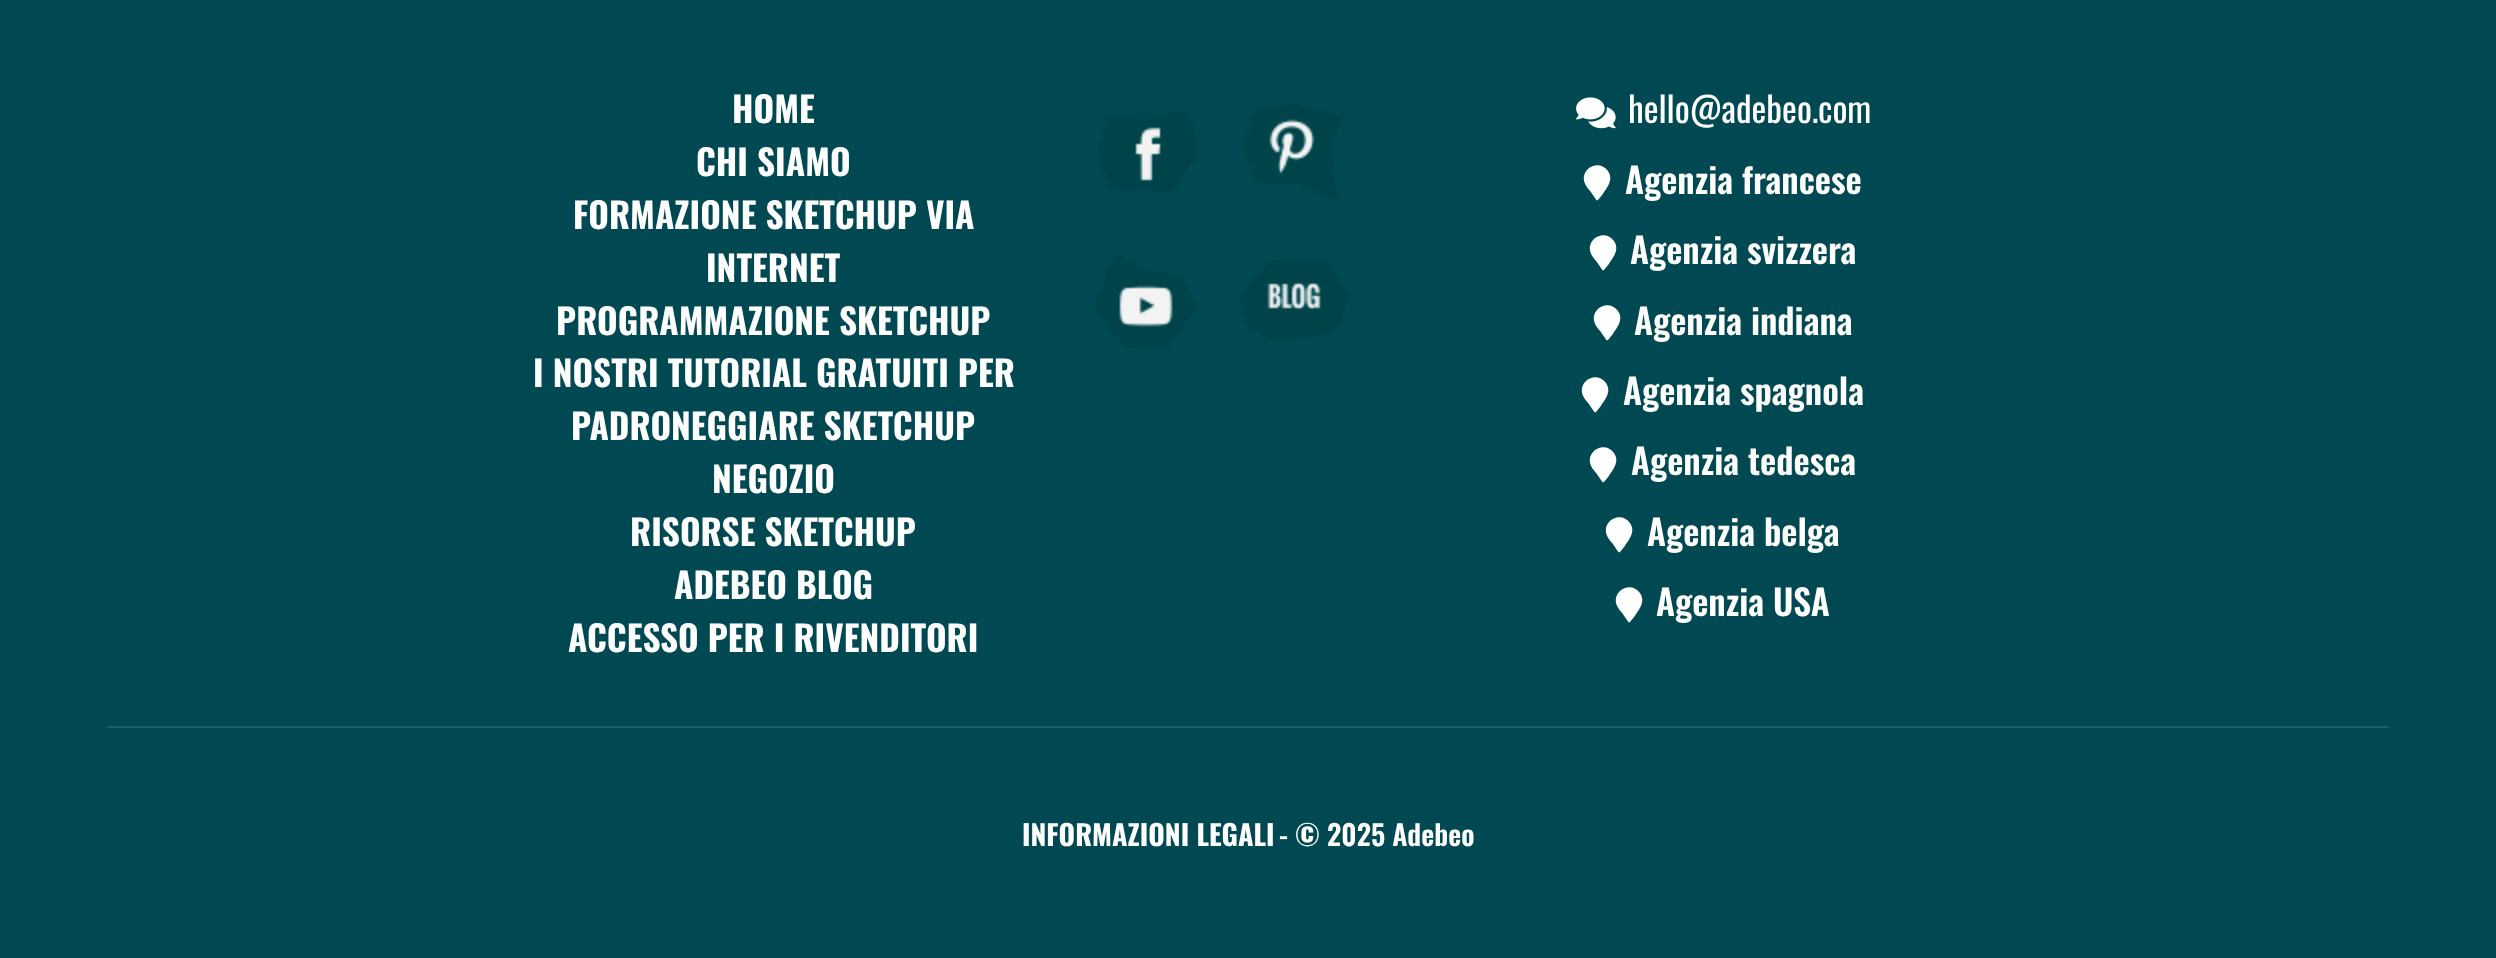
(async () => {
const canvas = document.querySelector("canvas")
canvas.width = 2496
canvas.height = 958
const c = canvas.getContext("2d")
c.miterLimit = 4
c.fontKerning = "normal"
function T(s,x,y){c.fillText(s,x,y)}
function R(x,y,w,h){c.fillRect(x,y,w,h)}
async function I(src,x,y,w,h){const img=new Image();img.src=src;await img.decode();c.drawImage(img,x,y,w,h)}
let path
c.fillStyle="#004852"
R(0,0,2496,958)
c.font="bold 35.25px Oswald"
c.fillStyle="#fff"
T("HOME",732,123)
T("CHI SIAMO",696,176)
T("FORMAZIONE SKETCHUP VIA",573,229)
T("INTERNET",706,282)
T("PROGRAMMAZIONE SKETCHUP",556,335)
T("I NOSTRI TUTORIAL GRATUITI PER",533,387)
T("PADRONEGGIARE SKETCHUP",571,440)
T("NEGOZIO",712,493)
T("RISORSE SKETCHUP",630,546)
T("ADEBEO BLOG",674,599)
T("ACCESSO PER I RIVENDITORI",568,652)
await I("1.png",1098,110,100,84)
await I("2.png",1244,104,98,96)
await I("3.png",1096,254,100,94)
await I("4.png",1240,260,108,82)
await I("5.png",1576,97,40,32)
c.font="35.25px Oswald"
T("hello@adebeo.com",1628,123)
path = new Path2D("M1596 199.5l-5.5-8c-2.5-3-5.5-6.5-6.5-10.5c-2.5-14 16-22 24-10c6 9-1 16.5-5.5 23.5l-4.5 5.5c-.5 .5-1.5 .5-2-.5z")
c.fill(path)
c.font="600 35.25px Oswald"
T("Agenzia francese",1625,194)
path = new Path2D("M1602 269.5l-5.5-8c-2.5-3-5.5-6.5-6.5-10.5c-2.5-14 16-22 24-10c6 9-1 16.5-5.5 23.5l-4.5 5.5c-.5 .5-1.5 .5-2-.5z")
c.fill(path)
T("Agenzia svizzera",1630,264)
path = new Path2D("M1606 339.5l-5.5-8c-2.5-3-5.5-6.5-6.5-10.5c-2.5-14 16-22 24-10c6 9-1 16.5-5.5 23.5l-4.5 5.5c-.5 .5-1.5 .5-2-.5z")
c.fill(path)
T("Agenzia indiana",1634,335)
path = new Path2D("M1594 411.5l-5.5-8c-2.5-3-5.5-6.5-6.5-10.5c-2.5-14 16-22 24-10c6 9-1 16.5-5.5 23.5l-4.5 5.5c-.5 .5-1.5 .5-2-.5z")
c.fill(path)
T("Agenzia spagnola",1623,405)
path = new Path2D("M1602 481.5l-5.5-8c-2.5-3-5.5-6.5-6.5-10.5c-2.5-14 16-22 24-10c6 9-1 16.5-5.5 23.5l-4.5 5.5c-.5 .5-1.5 .5-2-.5z")
c.fill(path)
T("Agenzia tedesca",1631,475)
path = new Path2D("M1618 551.5l-5.5-8c-2.5-3-5.5-6.5-6.5-10.5c-2.5-14 16-22 24-10c6 9-1 16.5-5.5 23.5l-4.5 5.5c-.5 .5-1.5 .5-2-.5z")
c.fill(path)
T("Agenzia belga",1647,546)
path = new Path2D("M1628 621.5l-5.5-8c-2.5-3-5.5-6.5-6.5-10.5c-2.5-14 16-22 24-10c6 9-1 16.5-5.5 23.5l-4.5 5.5c-.5 .5-1.5 .5-2-.5z")
c.fill(path)
T("Agenzia USA",1656,616)
c.fillStyle="#1f5e67"
R(108,726,2280,2)
c.font="bold 28.25px Oswald"
c.fillStyle="#fff"
T("INFORMAZIONI LEGALI",1022,846)
c.font="600 28.25px Oswald"
T("- © 2025 Adebeo",1279,846)
})()
